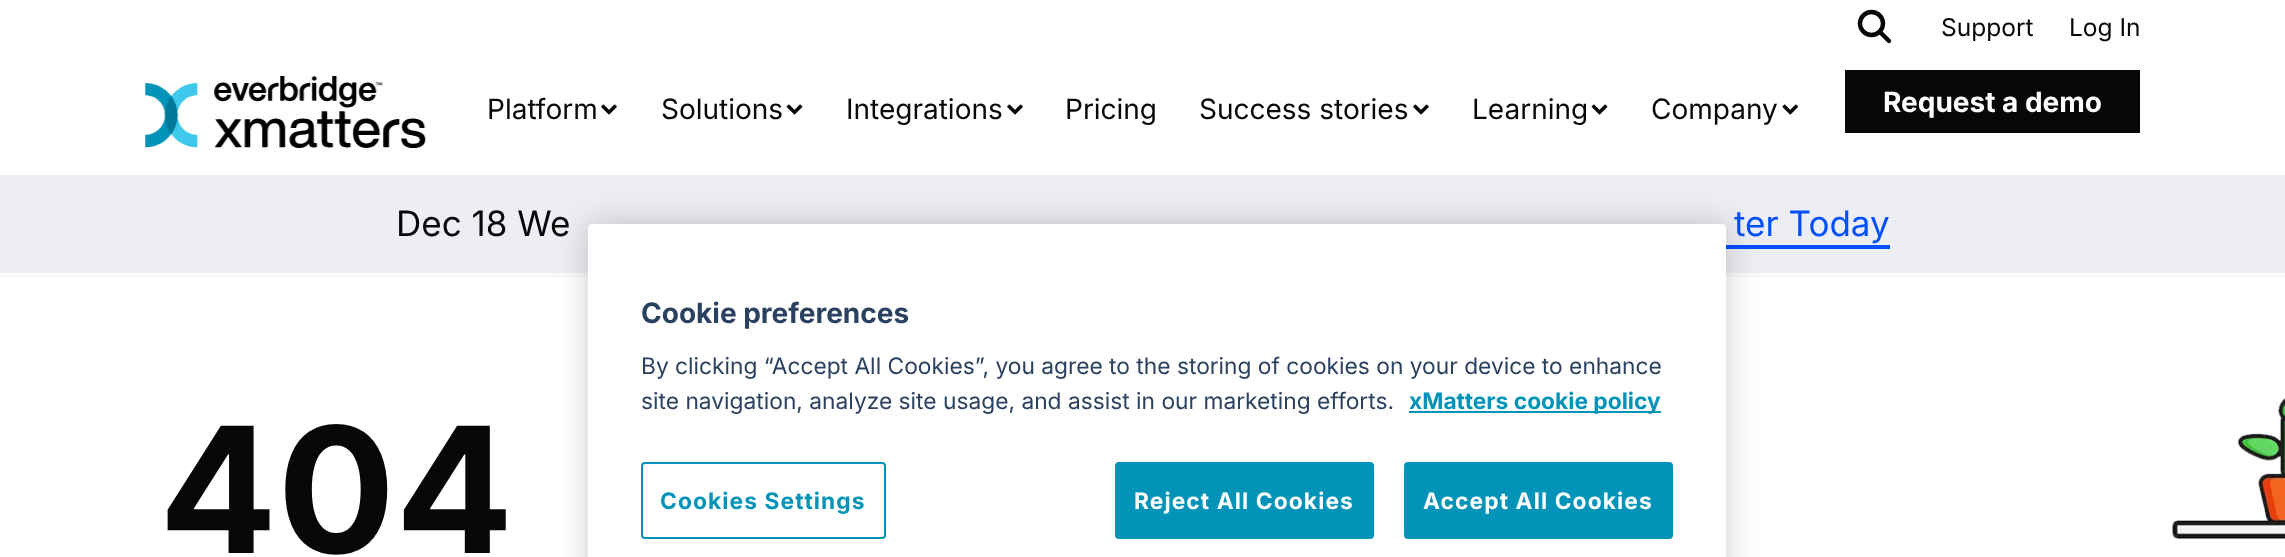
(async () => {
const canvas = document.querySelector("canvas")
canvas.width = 2285
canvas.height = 557
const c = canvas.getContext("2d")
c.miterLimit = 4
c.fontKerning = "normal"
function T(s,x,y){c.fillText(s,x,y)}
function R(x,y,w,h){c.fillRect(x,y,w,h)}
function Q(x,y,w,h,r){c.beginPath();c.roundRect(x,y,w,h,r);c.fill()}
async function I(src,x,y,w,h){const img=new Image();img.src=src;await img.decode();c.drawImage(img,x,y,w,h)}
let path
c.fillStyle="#fff"
R(0,0,2285,557)
c.beginPath()
c.arc(1871.5,23.5,11.5,0,7)
c.strokeStyle="#070707"
c.lineWidth=4.4
c.stroke()
path = new Path2D("M1880.5 32.5l8.5 8.5")
c.lineCap="round"
c.lineJoin="round"
c.stroke(path)
c.font="24.5px Inter"
c.fillStyle="#070707"
T("Support",1941,36)
T("Log In",2069,36)
await I("1.png",145,76,281,72)
c.font="28px Inter"
T("Platform",487,119)
await I("2.png",601,104,16,11)
T("Solutions",661,119)
await I("3.png",786,104,17,11)
T("Integrations",846,119)
await I("2.png",1007,104,16,11)
T("Pricing",1065,119)
T("Success stories",1199,119)
await I("2.png",1413,104,16,11)
T("Learning",1472,119)
await I("3.png",1591,104,17,11)
T("Company",1651,119)
await I("4.png",1782,104,17,11)
R(1845,70,295,63)
c.font="bold 28px Inter"
c.fillStyle="#fff"
T("Request a demo",1883,112)
c.fillStyle="#ededf4"
R(0,175,2285,98)
c.font="35px Inter"
c.fillStyle="#070707"
T("Dec 18 We",396,236)
c.fillStyle="#0050ff"
T("ter Today",1734,236)
R(1726,245,164,4)
await I("5.png",2172,398,113,142)
c.fillStyle="#f8f9f9"
R(0,273,2285,4)
c.font="bold 175px Inter"
c.fillStyle="#070707"
T("404",159,553)
c.fillStyle="#00000033"
c.filter="blur(16px)"
c.beginPath()
c.roundRect(588,224,1138,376,4)
c.fill()
c.filter="none"
c.fillStyle="#fff"
Q(588,224,1138,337,4)
c.font="bold 28px Inter"
c.fillStyle="#2b4160"
T("Cookie preferences",641,323)
c.font="22.75px Inter"
T("By clicking “Accept All Cookies”, you agree to the storing of cookies on your device to enhance",641,374)
T("site navigation, analyze site usage, and assist in our marketing efforts.",641,409)
c.fillStyle="#0293b9"
R(1409,411,252,2)
c.font="bold 22.75px Inter"
T("xMatters cookie policy",1409,409)
c.beginPath()
c.roundRect(642,463,243,75,3)
c.strokeStyle="#0293b9"
c.lineWidth=2
c.lineJoin="miter"
c.stroke()
c.letterSpacing="1.1px"
T("Cookies Settings",660,509)
c.beginPath()
c.roundRect(1116,463,257,75,3)
c.fill()
c.stroke()
c.fillStyle="#fff"
T("Reject All Cookies",1134,509)
c.fillStyle="#0293b9"
c.beginPath()
c.roundRect(1405,463,267,75,3)
c.fill()
c.stroke()
c.fillStyle="#fff"
T("Accept All Cookies",1423,509)
})()
